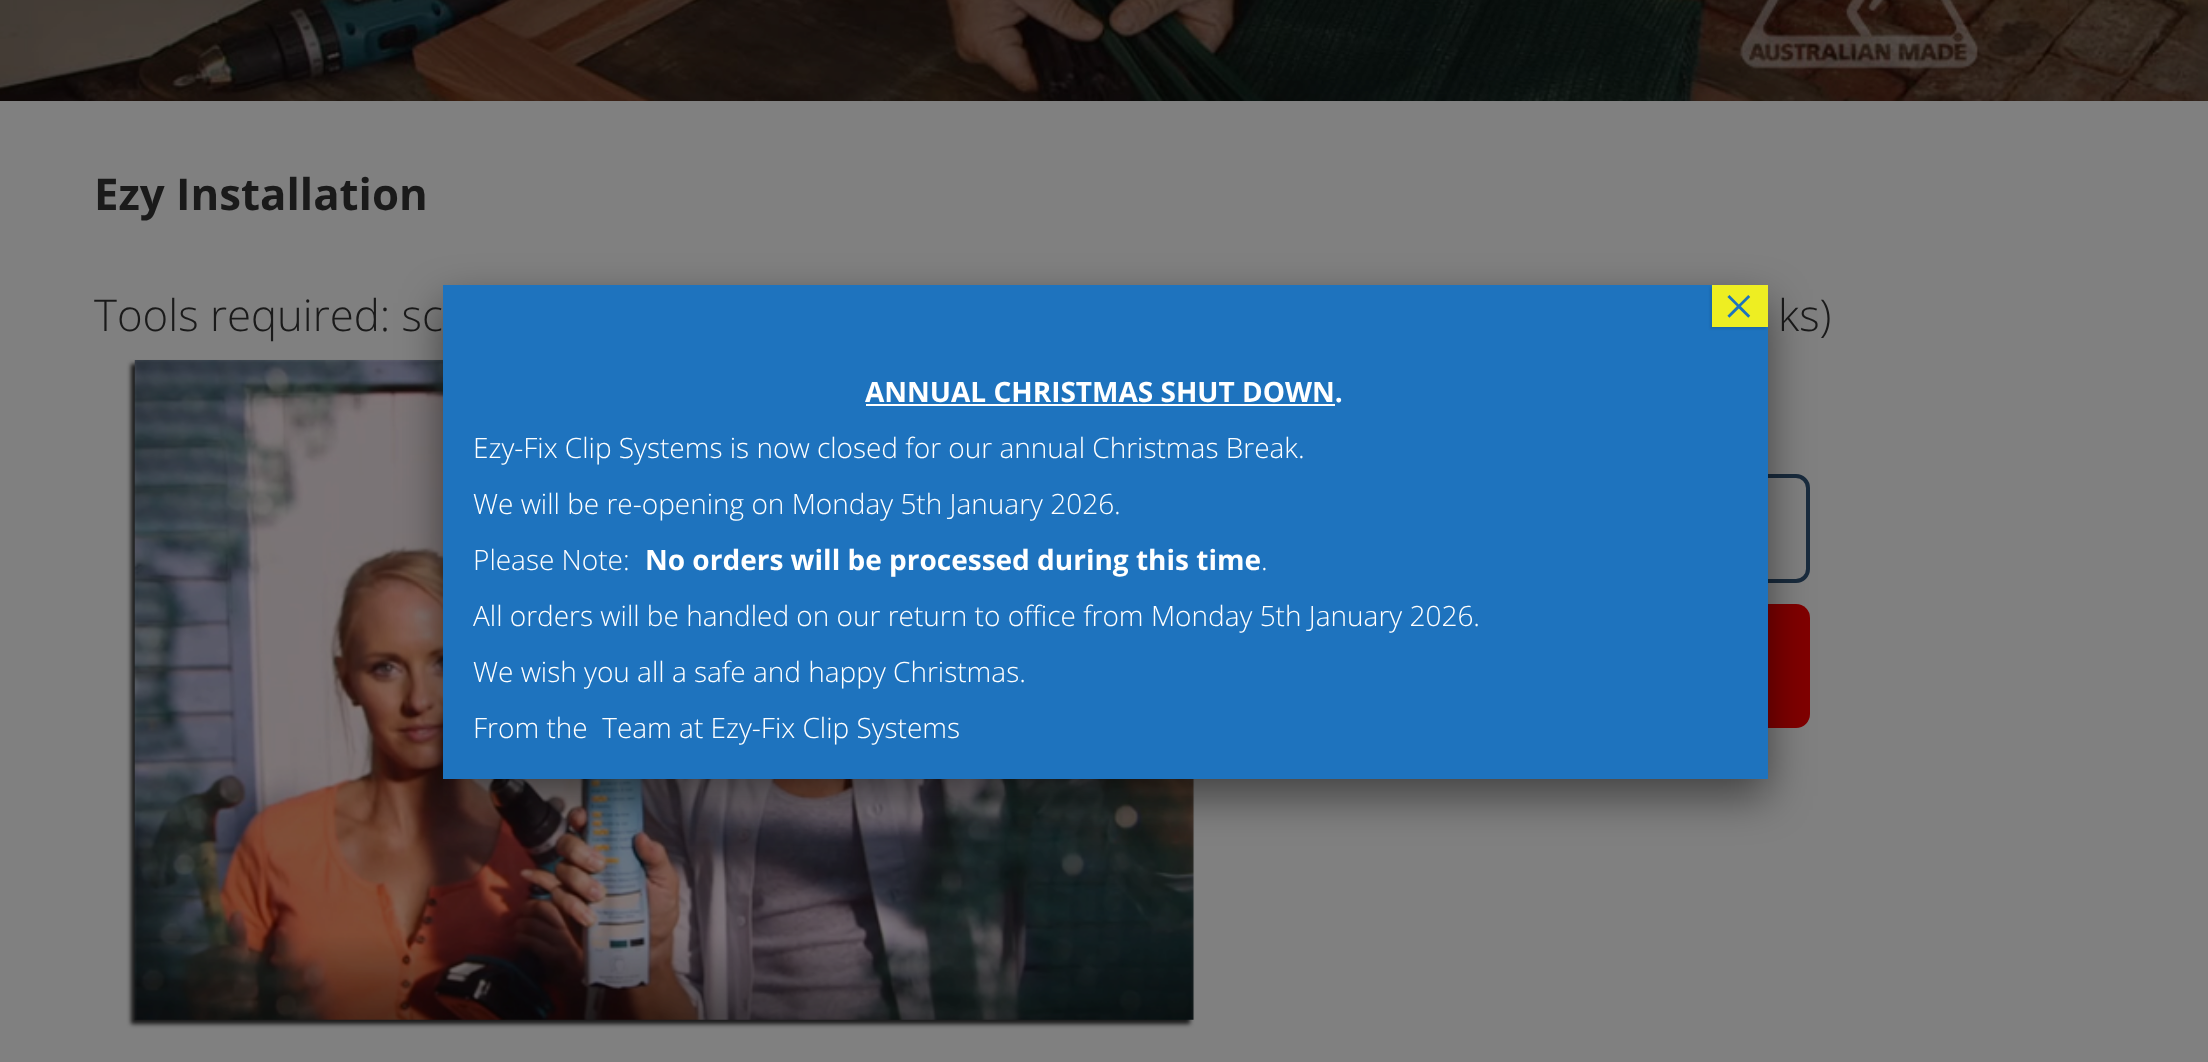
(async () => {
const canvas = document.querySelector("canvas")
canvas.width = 2208
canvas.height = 1062
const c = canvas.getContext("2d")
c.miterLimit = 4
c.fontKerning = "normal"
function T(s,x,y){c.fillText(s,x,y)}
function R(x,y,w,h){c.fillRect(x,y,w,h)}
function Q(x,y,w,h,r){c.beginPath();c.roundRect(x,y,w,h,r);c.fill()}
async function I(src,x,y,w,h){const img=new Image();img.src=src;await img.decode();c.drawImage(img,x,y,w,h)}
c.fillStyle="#808080"
R(0,0,2208,1062)
await I("1.png",0,0,2208,101)
c.font="bold 43.75px Open Sans"
c.fillStyle="#1a1a1a"
T("Ezy Installation",94,210)
c.font="300 43.75px Open Sans"
T("Tools required: sc",94,331)
T("ks)",1778,331)
c.filter="blur(2px)"
c.beginPath()
c.rect(131,364,1059,660)
c.fill()
c.filter="none"
await I("2.png",134,360,1060,660)
c.beginPath()
c.roundRect(1295,476,513,105,12)
c.strokeStyle="#192b3d"
c.lineWidth=4
c.stroke()
c.fillStyle="#800000"
Q(1293,604,517,124,14)
c.fillStyle="#02020280"
c.filter="blur(22px)"
c.beginPath()
c.rect(443,303,1325,493)
c.fill()
c.filter="none"
c.fillStyle="#1e73be"
R(443,285,1325,494)
c.fillStyle="#0202021a"
c.filter="blur(1px)"
c.beginPath()
c.rect(1710,287,56,42)
c.fill()
c.filter="none"
c.fillStyle="#ee2"
R(1712,285,56,42)
c.font="56px Liberation Serif"
c.fillStyle="#1e73be"
T("×",1723,325)
c.font="bold 28px Open Sans"
c.fillStyle="#fff"
T("ANNUAL CHRISTMAS SHUT DOWN.",865,402)
R(866,404,469,2)
c.font="300 28px Open Sans"
T("Ezy-Fix Clip Systems is now closed for our annual Christmas Break.",473,458)
T("We will be re-opening on Monday 5th January 2026.",473,514)
T("Please Note:",473,570)
c.font="bold 28px Open Sans"
T("No orders will be processed during this time",645,570)
c.font="300 28px Open Sans"
T(".",1261,570)
T("All orders will be handled on our return to office from Monday 5th January 2026.",473,626)
T("We wish you all a safe and happy Christmas.",473,682)
T("From the  Team at Ezy-Fix Clip Systems",473,738)
})()
